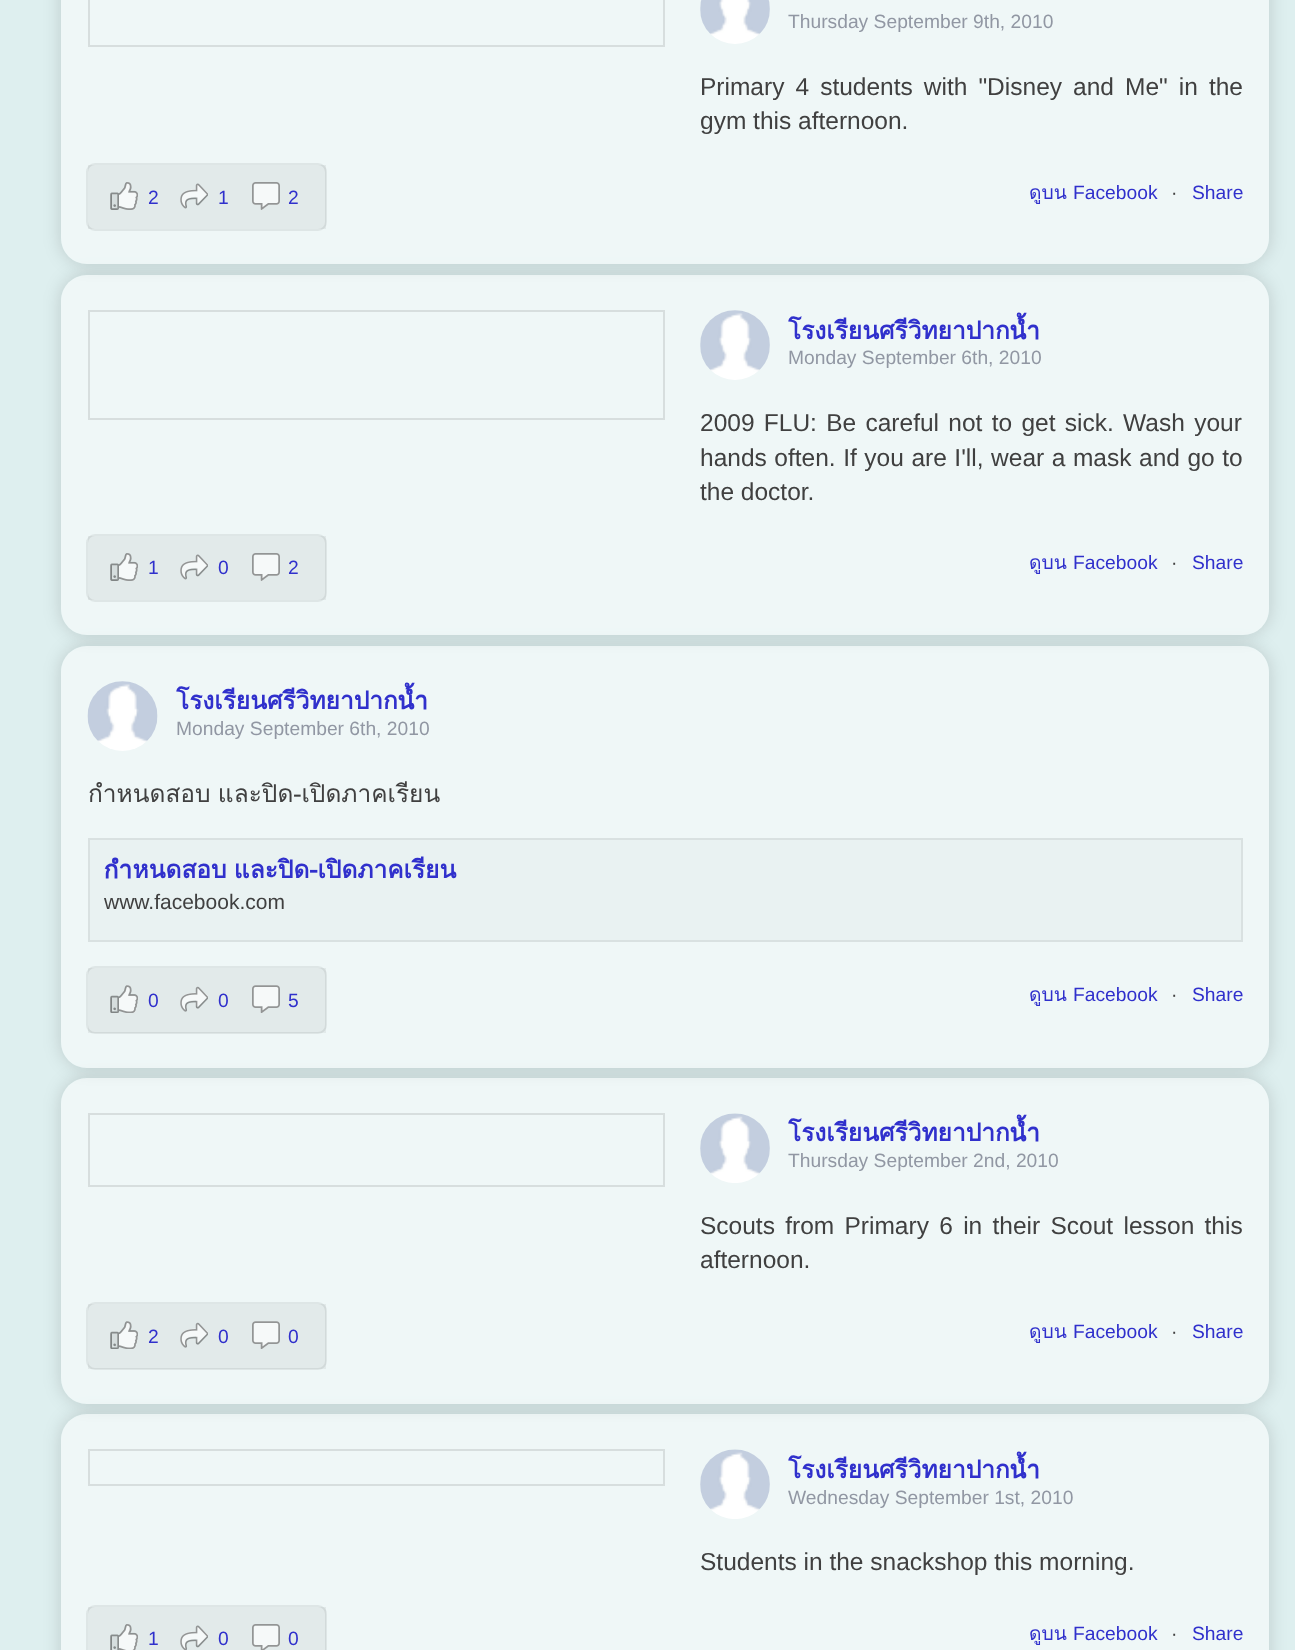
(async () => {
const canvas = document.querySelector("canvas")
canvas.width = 1295
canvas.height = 1650
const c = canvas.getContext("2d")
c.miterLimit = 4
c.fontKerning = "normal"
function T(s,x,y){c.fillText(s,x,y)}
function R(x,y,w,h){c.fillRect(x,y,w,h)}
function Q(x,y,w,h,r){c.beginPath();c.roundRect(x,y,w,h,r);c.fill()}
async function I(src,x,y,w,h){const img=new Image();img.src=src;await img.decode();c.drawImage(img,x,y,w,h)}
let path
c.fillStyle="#deefef"
R(0,0,1295,1650)
c.save()
path = new Path2D("M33 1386h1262v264h-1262zm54 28h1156c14.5 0 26 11.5 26 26v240c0 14.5-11.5 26-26 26h-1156c-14.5 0-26-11.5-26-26v-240c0-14.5 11.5-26 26-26z")
c.clip(path,"evenodd")
c.fillStyle="#00000026"
c.filter="blur(9px)"
c.beginPath()
c.roundRect(61,1414,1208,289,26)
c.fill()
c.filter="none"
c.restore()
c.fillStyle="#ffffff80"
Q(61,1414,1208,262,26)
c.save()
path = new Path2D("M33 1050h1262v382h-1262zm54 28h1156c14.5 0 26 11.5 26 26v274c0 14.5-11.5 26-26 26h-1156c-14.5 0-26-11.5-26-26v-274c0-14.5 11.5-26 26-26z")
c.clip(path,"evenodd")
c.fillStyle="#00000026"
c.filter="blur(9px)"
c.beginPath()
c.roundRect(61,1078,1208,326,26)
c.fill()
c.filter="none"
c.restore()
Q(61,1078,1208,326,26)
c.save()
path = new Path2D("M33 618h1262v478h-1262zm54 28h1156c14.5 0 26 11.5 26 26v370c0 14.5-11.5 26-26 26h-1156c-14.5 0-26-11.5-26-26v-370c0-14.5 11.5-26 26-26z")
c.clip(path,"evenodd")
c.fillStyle="#00000026"
c.filter="blur(9px)"
c.beginPath()
c.roundRect(61,646,1208,422,26)
c.fill()
c.filter="none"
c.restore()
Q(61,646,1208,422,26)
c.save()
path = new Path2D("M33 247h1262v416h-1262zm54 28h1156c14.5 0 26 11.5 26 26v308c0 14.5-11.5 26-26 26h-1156c-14.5 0-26-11.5-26-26v-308c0-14.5 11.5-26 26-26z")
c.clip(path,"evenodd")
c.fillStyle="#00000026"
c.filter="blur(9px)"
c.beginPath()
c.roundRect(61,275,1208,360,26)
c.fill()
c.filter="none"
c.restore()
Q(61,275,1208,360,26)
c.save()
path = new Path2D("M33 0h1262v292h-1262zm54-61h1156c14.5 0 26 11.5 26 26v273c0 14.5-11.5 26-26 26h-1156c-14.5 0-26-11.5-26-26v-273c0-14.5 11.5-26 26-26z")
c.clip(path,"evenodd")
c.fillStyle="#00000026"
c.filter="blur(9px)"
c.beginPath()
c.roundRect(61,-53,1208,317,26)
c.fill()
c.filter="none"
c.restore()
Q(61,-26,1208,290,26)
c.strokeStyle="#d7dede"
c.lineWidth=2
c.strokeRect(89,-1,575,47)
await I("1.png",700,0,70,44)
c.font="19.25px Liberation Sans"
c.fillStyle="#9197a3"
T("Thursday September 9th, 2010",788,28)
c.wordSpacing="4.25px"
c.font="24.5px Liberation Sans"
c.fillStyle="#404040"
T("Primary 4 students with \"Disney and Me\" in the",700,95)
c.wordSpacing="0px"
T("gym this afternoon.",700,129)
c.beginPath()
c.roundRect(87,164,239,66,8)
c.strokeStyle="#dee6e6"
c.stroke()
c.fillStyle="#0000000d"
R(88,165,238,64)
await I("2.png",110,182,28,28)
await I("3.png",110,182,28,28)
c.font="19.25px Liberation Sans"
c.fillStyle="#3030cc"
T("2",148,204)
await I("5.png",180,184,28,24)
await I("4.png",180,183,28,26)
T("1",218,204)
await I("6.png",252,182,28,28)
await I("7.png",252,182,28,28)
T("2",288,204)
c.font="19.25px Loma"
T("ดูบน",1029,199)
c.font="19.25px Liberation Sans"
T("Facebook",1073,199)
c.fillStyle="#404040"
T("·",1171,199)
c.fillStyle="#3030cc"
T("Share",1192,199)
c.strokeStyle="#d7dede"
c.strokeRect(89,311,575,108)
await I("8.png",700,310,70,70)
c.font="bold 24.5px Loma"
T("โรงเรียนศรีวิทยาปากน้ำ",788,339)
c.font="19.25px Liberation Sans"
c.fillStyle="#9197a3"
T("Monday September 6th, 2010",788,364)
c.wordSpacing="2.5px"
c.font="24.5px Liberation Sans"
c.fillStyle="#404040"
T("2009 FLU: Be careful not to get sick. Wash your",700,431)
c.wordSpacing="0.75px"
T("hands often. If you are I'll, wear a mask and go to",700,466)
c.wordSpacing="0px"
T("the doctor.",700,500)
c.beginPath()
c.roundRect(87,535,239,66,8)
c.strokeStyle="#dee6e6"
c.stroke()
c.fillStyle="#0000000d"
R(88,536,238,64)
await I("2.png",110,553,28,28)
await I("3.png",110,553,28,28)
c.font="19.25px Liberation Sans"
c.fillStyle="#3030cc"
T("1",148,574)
await I("5.png",180,555,28,24)
await I("4.png",180,554,28,26)
T("0",218,574)
await I("6.png",252,553,28,28)
await I("7.png",252,553,28,28)
T("2",288,574)
c.font="19.25px Loma"
T("ดูบน",1029,569)
c.font="19.25px Liberation Sans"
T("Facebook",1073,569)
c.fillStyle="#404040"
T("·",1171,569)
c.fillStyle="#3030cc"
T("Share",1192,569)
await I("9.png",87,681,71,70)
c.font="bold 24.5px Loma"
T("โรงเรียนศรีวิทยาปากน้ำ",176,709)
c.font="19.25px Liberation Sans"
c.fillStyle="#9197a3"
T("Monday September 6th, 2010",176,735)
c.wordSpacing="-1px"
c.font="24.5px Loma"
c.fillStyle="#404040"
T("กำหนดสอบ และปิด-เปิดภาคเรียน",88,802)
c.fillStyle="#e9f2f2"
c.beginPath()
c.rect(89,839,1153,102)
c.fill()
c.strokeStyle="#d9e1e1"
c.stroke()
c.font="bold 24.5px Loma"
c.fillStyle="#3030cc"
T("กำหนดสอบ และปิด-เปิดภาคเรียน",104,878)
c.wordSpacing="0px"
c.font="21px Liberation Sans"
c.fillStyle="#404040"
T("www.facebook.com",104,909)
c.beginPath()
c.roundRect(87,967,239,66,8)
c.strokeStyle="#dee6e6"
c.stroke()
c.fillStyle="#0000000d"
R(88,968,238,65)
await I("10.png",110,985,28,28)
await I("11.png",110,985,28,28)
c.font="19.25px Liberation Sans"
c.fillStyle="#3030cc"
T("0",148,1007)
await I("13.png",180,987,28,25)
await I("12.png",180,986,28,26)
T("0",218,1007)
await I("14.png",252,985,28,28)
await I("15.png",252,985,28,28)
T("5",288,1007)
c.font="19.25px Loma"
T("ดูบน",1029,1001)
c.font="19.25px Liberation Sans"
T("Facebook",1073,1001)
c.fillStyle="#404040"
T("·",1171,1001)
c.fillStyle="#3030cc"
T("Share",1192,1001)
c.strokeStyle="#d7dede"
c.strokeRect(89,1114,575,72)
await I("16.png",700,1113,70,70)
c.font="bold 24.5px Loma"
T("โรงเรียนศรีวิทยาปากน้ำ",788,1141)
c.font="19.25px Liberation Sans"
c.fillStyle="#9197a3"
T("Thursday September 2nd, 2010",788,1167)
c.wordSpacing="3.5px"
c.font="24.5px Liberation Sans"
c.fillStyle="#404040"
T("Scouts from Primary 6 in their Scout lesson this",700,1234)
c.wordSpacing="0px"
T("afternoon.",700,1268)
c.beginPath()
c.roundRect(87,1303,239,66,8)
c.strokeStyle="#dee6e6"
c.stroke()
c.fillStyle="#0000000d"
R(88,1304,238,65)
await I("10.png",110,1321,28,28)
await I("11.png",110,1321,28,28)
c.font="19.25px Liberation Sans"
c.fillStyle="#3030cc"
T("2",148,1343)
await I("13.png",180,1323,28,25)
await I("12.png",180,1322,28,26)
T("0",218,1343)
await I("14.png",252,1321,28,28)
await I("15.png",252,1321,28,28)
T("0",288,1343)
c.font="19.25px Loma"
T("ดูบน",1029,1338)
c.font="19.25px Liberation Sans"
T("Facebook",1073,1338)
c.fillStyle="#404040"
T("·",1171,1338)
c.fillStyle="#3030cc"
T("Share",1192,1338)
c.strokeStyle="#d7dede"
c.strokeRect(89,1450,575,35)
await I("17.png",700,1449,70,70)
c.font="bold 24.5px Loma"
T("โรงเรียนศรีวิทยาปากน้ำ",788,1478)
c.font="19.25px Liberation Sans"
c.fillStyle="#9197a3"
T("Wednesday September 1st, 2010",788,1504)
c.font="24.5px Liberation Sans"
c.fillStyle="#404040"
T("Students in the snackshop this morning.",700,1570)
c.beginPath()
c.roundRect(87,1606,239,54,8)
c.strokeStyle="#dee6e6"
c.stroke()
c.fillStyle="#0000000d"
R(88,1607,238,43)
await I("18.png",110,1624,28,26)
await I("19.png",110,1624,28,26)
c.font="19.25px Liberation Sans"
c.fillStyle="#3030cc"
T("1",148,1645)
await I("5.png",180,1626,28,24)
await I("20.png",180,1625,28,25)
T("0",218,1645)
await I("21.png",252,1624,28,26)
await I("22.png",252,1624,28,26)
T("0",288,1645)
c.font="19.25px Loma"
T("ดูบน",1029,1640)
c.font="19.25px Liberation Sans"
T("Facebook",1073,1640)
c.fillStyle="#404040"
T("·",1171,1640)
c.fillStyle="#3030cc"
T("Share",1192,1640)
})()
